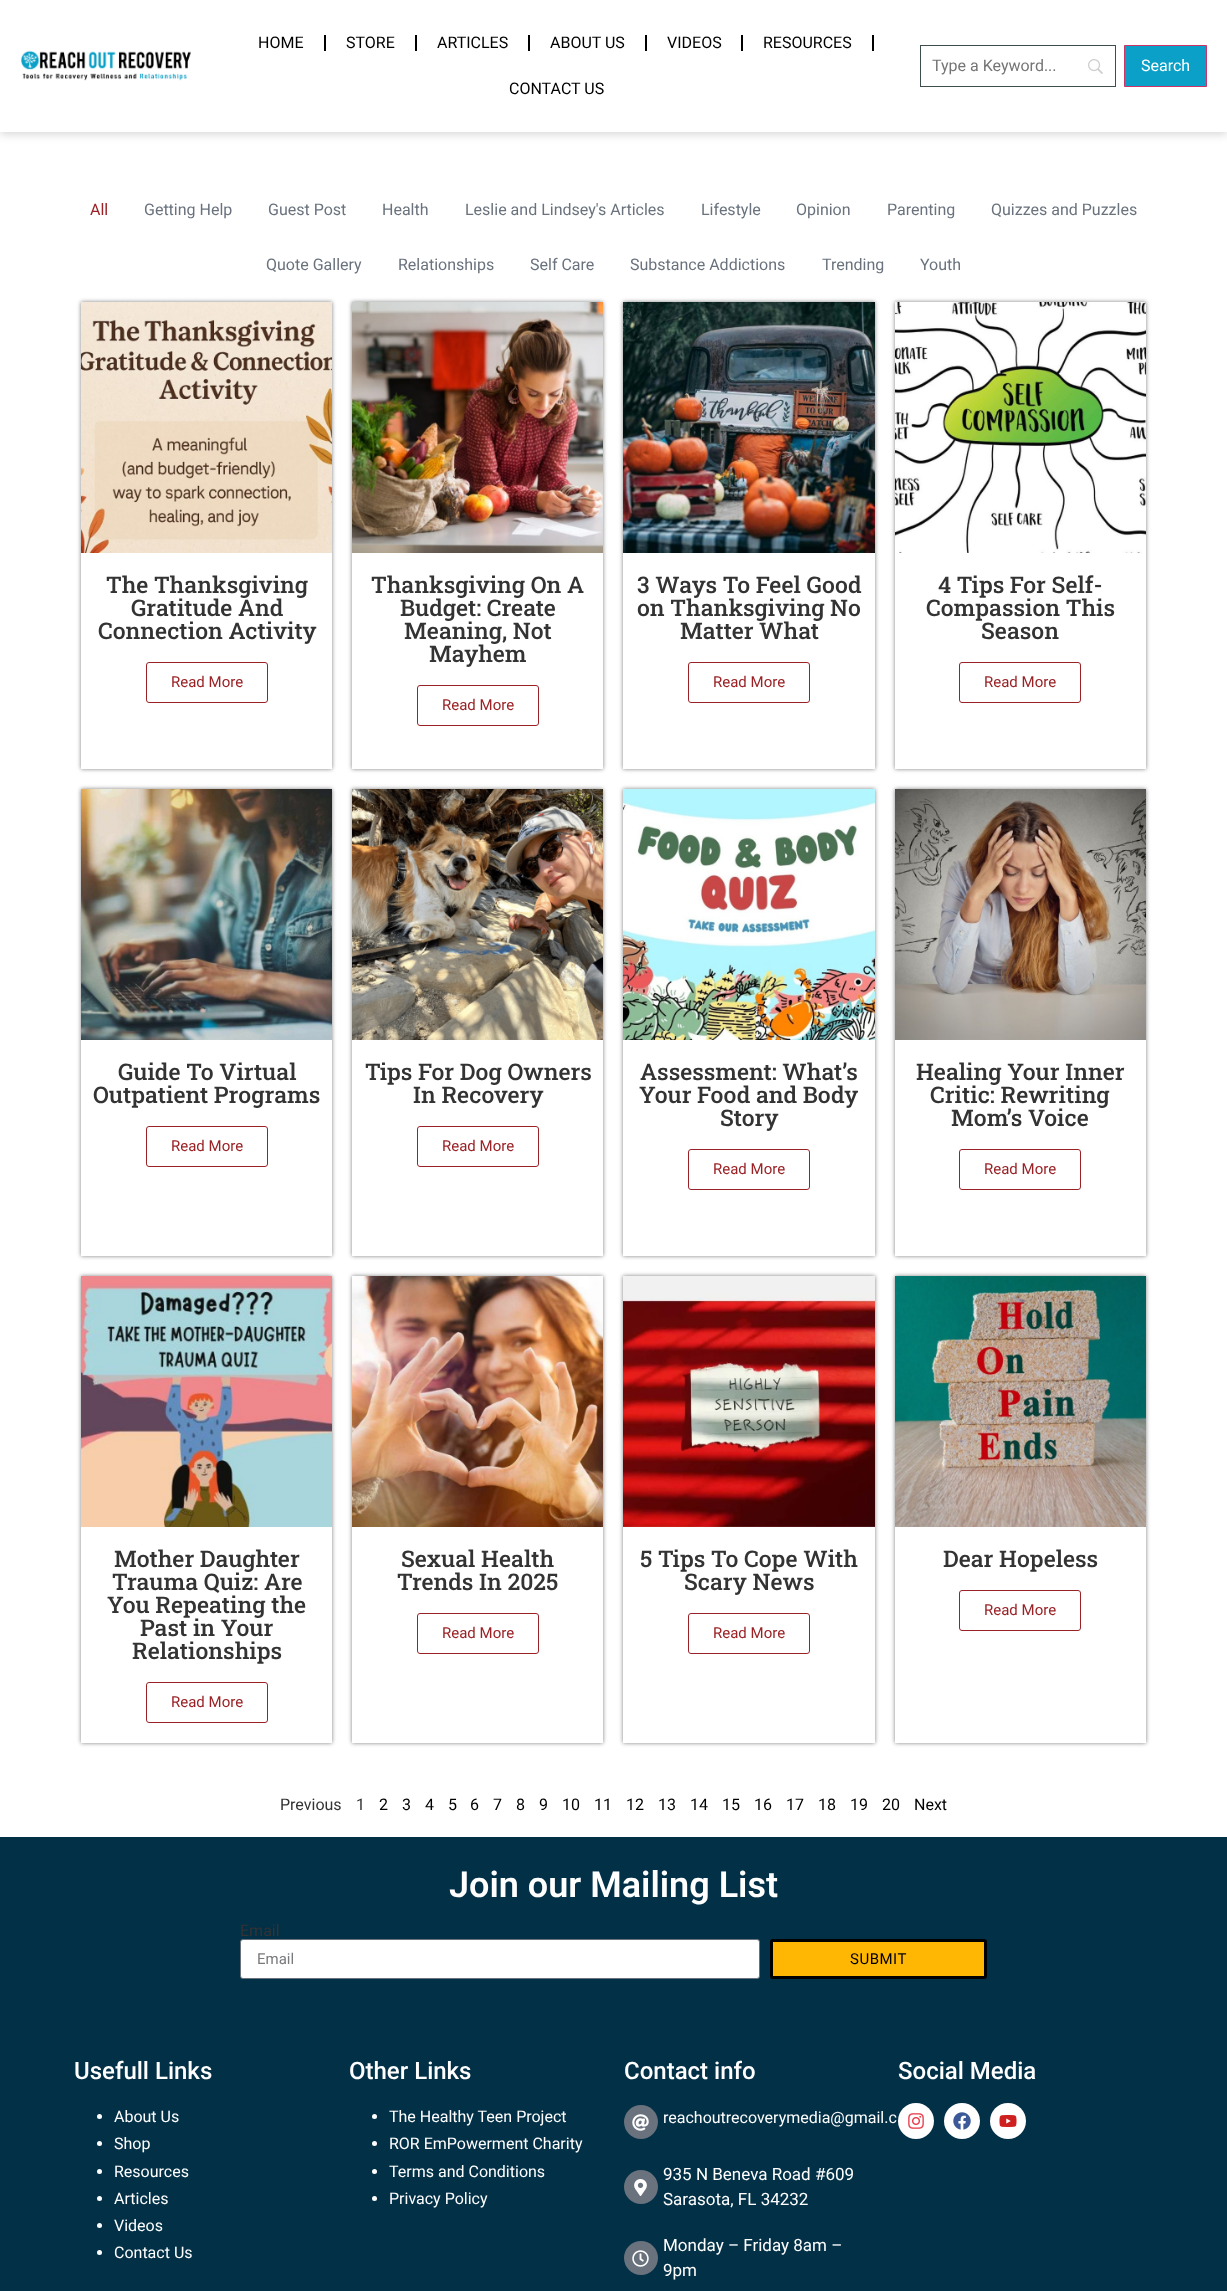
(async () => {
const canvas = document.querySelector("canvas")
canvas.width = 1227
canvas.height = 2291
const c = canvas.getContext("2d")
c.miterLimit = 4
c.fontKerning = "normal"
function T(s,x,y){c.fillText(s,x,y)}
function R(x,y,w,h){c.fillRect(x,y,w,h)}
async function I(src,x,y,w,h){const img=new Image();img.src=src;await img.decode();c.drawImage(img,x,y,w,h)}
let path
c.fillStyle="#fff"
R(0,0,1227,2291)
c.fillStyle="#0000002b"
c.filter="blur(5px)"
c.beginPath()
c.rect(0,2,1227,132)
c.fill()
c.filter="none"
c.fillStyle="#fff"
R(0,0,1227,132)
await I("1.png",21,50,170,31)
c.font="16px Roboto"
c.fillStyle="#000"
T("HOME",258,48)
R(324,35,2,16)
T("STORE",346,48)
R(415,35,2,16)
T("ARTICLES",437,48)
R(528,35,2,16)
T("ABOUT US",550,48)
R(645,35,2,16)
T("VIDEOS",667,48)
R(741,35,2,16)
T("RESOURCES",763,48)
R(872,35,2,16)
T("CONTACT US",509,94)
await I("2.png",1088,59,15,15)
c.strokeStyle="#3e4d4d"
c.strokeRect(920.5,45.5,195,41)
c.fillStyle="#757575"
T("Type a Keyword...",932,71)
c.fillStyle="#0ba0c7"
c.beginPath()
c.rect(1124.5,45.5,82,41)
c.fill()
c.strokeStyle="#c36"
c.stroke()
c.fillStyle="#fff"
T("Search",1141,71)
c.fillStyle="#9a2226"
T("All",90,215)
c.fillStyle="#69727d"
T("Getting Help",144,215)
T("Guest Post",268,215)
T("Health",382,215)
T("Leslie and Lindsey's Articles",465,215)
T("Lifestyle",701,215)
T("Opinion",796,215)
T("Parenting",887,215)
T("Quizzes and Puzzles",991,215)
T("Quote Gallery",266,270)
T("Relationships",398,270)
T("Self Care",530,270)
T("Substance Addictions",630,270)
T("Trending",822,270)
T("Youth",920,270)
c.save()
path = new Path2D("M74 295h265v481h-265zm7 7h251v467h-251z")
c.clip(path,"evenodd")
c.fillStyle="#00000080"
c.filter="blur(2px)"
c.beginPath()
c.rect(81,302,251,467)
c.fill()
c.filter="none"
c.restore()
await I("3.png",81,302,251,251)
c.font="500 23px Roboto Slab"
c.fillStyle="#333"
T("The Thanksgiving",106,593)
T("Gratitude And",131,616)
T("Connection Activity",98,639)
c.beginPath()
c.roundRect(146.5,662.5,121,40,2.5)
c.strokeStyle="#9a2226"
c.stroke()
c.font="15px Roboto"
c.fillStyle="#9a2226"
T("Read More",171,687)
c.save()
path = new Path2D("M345 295h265v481h-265zm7 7h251v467h-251z")
c.clip(path,"evenodd")
c.fillStyle="#00000080"
c.filter="blur(2px)"
c.beginPath()
c.rect(352,302,251,467)
c.fill()
c.filter="none"
c.restore()
await I("4.png",352,302,251,251)
c.font="500 23px Roboto Slab"
c.fillStyle="#333"
T("Thanksgiving On A",371,593)
T("Budget: Create",400,616)
T("Meaning, Not",404,639)
T("Mayhem",429,662)
c.beginPath()
c.roundRect(417.5,685.5,121,40,2.5)
c.stroke()
c.font="15px Roboto"
c.fillStyle="#9a2226"
T("Read More",442,710)
c.save()
path = new Path2D("M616 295h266v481h-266zm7 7h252v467h-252z")
c.clip(path,"evenodd")
c.fillStyle="#00000080"
c.filter="blur(2px)"
c.beginPath()
c.rect(623,302,252,467)
c.fill()
c.filter="none"
c.restore()
await I("5.png",623,302,252,251)
c.font="500 23px Roboto Slab"
c.fillStyle="#333"
T("3 Ways To Feel Good",637,593)
T("on Thanksgiving No",637,616)
T("Matter What",680,639)
c.beginPath()
c.roundRect(688.5,662.5,121,40,2.5)
c.stroke()
c.font="15px Roboto"
c.fillStyle="#9a2226"
T("Read More",713,687)
c.save()
path = new Path2D("M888 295h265v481h-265zm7 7h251v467h-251z")
c.clip(path,"evenodd")
c.fillStyle="#00000080"
c.filter="blur(2px)"
c.beginPath()
c.rect(895,302,251,467)
c.fill()
c.filter="none"
c.restore()
await I("6.png",895,302,251,251)
c.font="500 23px Roboto Slab"
c.fillStyle="#333"
T("4 Tips For Self-",938,593)
T("Compassion This",926,616)
T("Season",981,639)
c.beginPath()
c.roundRect(959.5,662.5,121,40,2.5)
c.stroke()
c.font="15px Roboto"
c.fillStyle="#9a2226"
T("Read More",984,687)
c.save()
path = new Path2D("M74 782h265v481h-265zm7 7h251v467h-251z")
c.clip(path,"evenodd")
c.fillStyle="#00000080"
c.filter="blur(2px)"
c.beginPath()
c.rect(81,789,251,467)
c.fill()
c.filter="none"
c.restore()
await I("7.png",81,789,251,251)
c.font="500 23px Roboto Slab"
c.fillStyle="#333"
T("Guide To Virtual",118,1080)
T("Outpatient Programs",93,1103)
c.beginPath()
c.roundRect(146.5,1126.5,121,40,2.5)
c.stroke()
c.font="15px Roboto"
c.fillStyle="#9a2226"
T("Read More",171,1151)
c.save()
path = new Path2D("M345 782h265v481h-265zm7 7h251v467h-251z")
c.clip(path,"evenodd")
c.fillStyle="#00000080"
c.filter="blur(2px)"
c.beginPath()
c.rect(352,789,251,467)
c.fill()
c.filter="none"
c.restore()
await I("8.png",352,789,251,251)
c.font="500 23px Roboto Slab"
c.fillStyle="#333"
T("Tips For Dog Owners",365,1080)
T("In Recovery",413,1103)
c.beginPath()
c.roundRect(417.5,1126.5,121,40,2.5)
c.stroke()
c.font="15px Roboto"
c.fillStyle="#9a2226"
T("Read More",442,1151)
c.save()
path = new Path2D("M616 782h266v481h-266zm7 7h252v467h-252z")
c.clip(path,"evenodd")
c.fillStyle="#00000080"
c.filter="blur(2px)"
c.beginPath()
c.rect(623,789,252,467)
c.fill()
c.filter="none"
c.restore()
await I("9.png",623,789,252,251)
c.font="500 23px Roboto Slab"
c.fillStyle="#333"
T("Assessment: What’s",640,1080)
T("Your Food and Body",639,1103)
T("Story",720,1126)
c.beginPath()
c.roundRect(688.5,1149.5,121,40,2.5)
c.stroke()
c.font="15px Roboto"
c.fillStyle="#9a2226"
T("Read More",713,1174)
c.save()
path = new Path2D("M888 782h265v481h-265zm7 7h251v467h-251z")
c.clip(path,"evenodd")
c.fillStyle="#00000080"
c.filter="blur(2px)"
c.beginPath()
c.rect(895,789,251,467)
c.fill()
c.filter="none"
c.restore()
await I("10.png",895,789,251,251)
c.font="500 23px Roboto Slab"
c.fillStyle="#333"
T("Healing Your Inner",916,1080)
T("Critic: Rewriting",930,1103)
T("Mom’s Voice",951,1126)
c.beginPath()
c.roundRect(959.5,1149.5,121,40,2.5)
c.stroke()
c.font="15px Roboto"
c.fillStyle="#9a2226"
T("Read More",984,1174)
c.save()
path = new Path2D("M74 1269h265v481h-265zm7 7h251v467h-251z")
c.clip(path,"evenodd")
c.fillStyle="#00000080"
c.filter="blur(2px)"
c.beginPath()
c.rect(81,1276,251,467)
c.fill()
c.filter="none"
c.restore()
await I("11.png",81,1276,251,251)
c.font="500 23px Roboto Slab"
c.fillStyle="#333"
T("Mother Daughter",114,1567)
T("Trauma Quiz: Are",112,1590)
T("You Repeating the",107,1613)
T("Past in Your",140,1636)
T("Relationships",132,1659)
c.beginPath()
c.roundRect(146.5,1682.5,121,40,2.5)
c.stroke()
c.font="15px Roboto"
c.fillStyle="#9a2226"
T("Read More",171,1707)
c.save()
path = new Path2D("M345 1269h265v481h-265zm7 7h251v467h-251z")
c.clip(path,"evenodd")
c.fillStyle="#00000080"
c.filter="blur(2px)"
c.beginPath()
c.rect(352,1276,251,467)
c.fill()
c.filter="none"
c.restore()
await I("12.png",352,1276,251,251)
c.font="500 23px Roboto Slab"
c.fillStyle="#333"
T("Sexual Health",401,1567)
T("Trends In 2025",397,1590)
c.beginPath()
c.roundRect(417.5,1613.5,121,40,2.5)
c.stroke()
c.font="15px Roboto"
c.fillStyle="#9a2226"
T("Read More",442,1638)
c.save()
path = new Path2D("M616 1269h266v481h-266zm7 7h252v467h-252z")
c.clip(path,"evenodd")
c.fillStyle="#00000080"
c.filter="blur(2px)"
c.beginPath()
c.rect(623,1276,252,467)
c.fill()
c.filter="none"
c.restore()
await I("13.png",623,1276,252,251)
c.font="500 23px Roboto Slab"
c.fillStyle="#333"
T("5 Tips To Cope With",640,1567)
T("Scary News",684,1590)
c.beginPath()
c.roundRect(688.5,1613.5,121,40,2.5)
c.stroke()
c.font="15px Roboto"
c.fillStyle="#9a2226"
T("Read More",713,1638)
c.save()
path = new Path2D("M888 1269h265v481h-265zm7 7h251v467h-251z")
c.clip(path,"evenodd")
c.fillStyle="#00000080"
c.filter="blur(2px)"
c.beginPath()
c.rect(895,1276,251,467)
c.fill()
c.filter="none"
c.restore()
await I("14.png",895,1276,251,251)
c.font="500 23px Roboto Slab"
c.fillStyle="#333"
T("Dear Hopeless",943,1567)
c.beginPath()
c.roundRect(959.5,1590.5,121,40,2.5)
c.stroke()
c.font="15px Roboto"
c.fillStyle="#9a2226"
T("Read More",984,1615)
c.font="16px Roboto"
c.fillStyle="#333"
T("Previous",280,1810)
T("1",356,1810)
c.fillStyle="#000"
T("2",379,1810)
T("3",402,1810)
T("4",425,1810)
T("5",448,1810)
T("6",470,1810)
T("7",493,1810)
T("8",516,1810)
T("9",539,1810)
T("10",562,1810)
T("11",594,1810)
T("12",626,1810)
T("13",658,1810)
T("14",690,1810)
T("15",722,1810)
T("16",754,1810)
T("17",786,1810)
T("18",818,1810)
T("19",850,1810)
T("20",882,1810)
T("Next",914,1810)
c.fillStyle="#023047"
R(0,1837,1227,454)
c.font="600 36px Roboto"
c.fillStyle="#fff"
T("Join our Mailing List",449,1897)
c.font="16px Roboto"
c.fillStyle="#333"
T("Email",240,1936)
c.fillStyle="#fff"
c.beginPath()
c.roundRect(240.5,1939.5,519,39,2.5)
c.fill()
c.strokeStyle="#69727d"
c.stroke()
c.font="15px Roboto"
c.fillStyle="#797a7c"
T("Email",257,1964)
c.fillStyle="#ffb704"
c.beginPath()
c.roundRect(771.5,1940.5,214,37,1.5)
c.fill()
c.strokeStyle="#000"
c.lineWidth=3
c.stroke()
c.letterSpacing="0.5px"
c.fillStyle="#000"
T("SUBMIT",850,1964)
c.letterSpacing="0px"
c.font="500 24px Roboto"
c.fillStyle="#fff"
T("Usefull Links",74,2079)
c.beginPath()
c.arc(99.5,2116.5,2.5,0,7)
c.fill()
c.font="16px Roboto"
T("About Us",114,2122)
c.beginPath()
c.arc(99.5,2143.5,2.5,0,7)
c.fill()
T("Shop",114,2149)
c.beginPath()
c.arc(99.5,2171.5,2.5,0,7)
c.fill()
T("Resources",114,2177)
c.beginPath()
c.arc(99.5,2198.5,2.5,0,7)
c.fill()
T("Articles",114,2204)
c.beginPath()
c.arc(99.5,2225.5,2.5,0,7)
c.fill()
T("Videos",114,2231)
c.beginPath()
c.arc(99.5,2252.5,2.5,0,7)
c.fill()
T("Contact Us",114,2258)
c.font="500 24px Roboto"
T("Other Links",349,2079)
c.beginPath()
c.arc(374.5,2116.5,2.5,0,7)
c.fill()
c.font="16px Roboto"
T("The Healthy Teen Project",389,2122)
c.beginPath()
c.arc(374.5,2143.5,2.5,0,7)
c.fill()
T("ROR EmPowerment Charity",389,2149)
c.beginPath()
c.arc(374.5,2171.5,2.5,0,7)
c.fill()
T("Terms and Conditions",389,2177)
c.beginPath()
c.arc(374.5,2198.5,2.5,0,7)
c.fill()
T("Privacy Policy",389,2204)
c.font="500 24px Roboto"
T("Contact info",624,2079)
c.fillStyle="#69727d"
c.beginPath()
c.arc(641,2122,17,0,7)
c.fill()
await I("15.png",632,2114,17,17)
c.font="16px Roboto"
c.fillStyle="#fff"
T("reachoutrecoverymedia@gmail.c",663,2123)
c.fillStyle="#69727d"
c.beginPath()
c.arc(641,2187,17,0,7)
c.fill()
await I("16.png",634,2179,13,17)
c.font="17px Roboto"
c.fillStyle="#fff"
T("935 N Beneva Road #609",663,2180)
T("Sarasota, FL 34232",663,2205)
c.fillStyle="#69727d"
c.beginPath()
c.arc(641,2258,17,0,7)
c.fill()
await I("17.png",632,2250,17,17)
c.fillStyle="#fff"
T("Monday – Friday 8am –",663,2251)
T("9pm",663,2276)
c.font="500 24px Roboto"
T("Social Media",898,2079)
c.beginPath()
c.arc(916,2121,18,0,7)
c.fill()
await I("18.png",908,2113,16,16)
c.beginPath()
c.arc(962,2121,18,0,7)
c.fill()
await I("19.png",953,2112,18,18)
c.beginPath()
c.arc(1008,2121,18,0,7)
c.fill()
await I("20.png",999,2115,18,12)
})()
